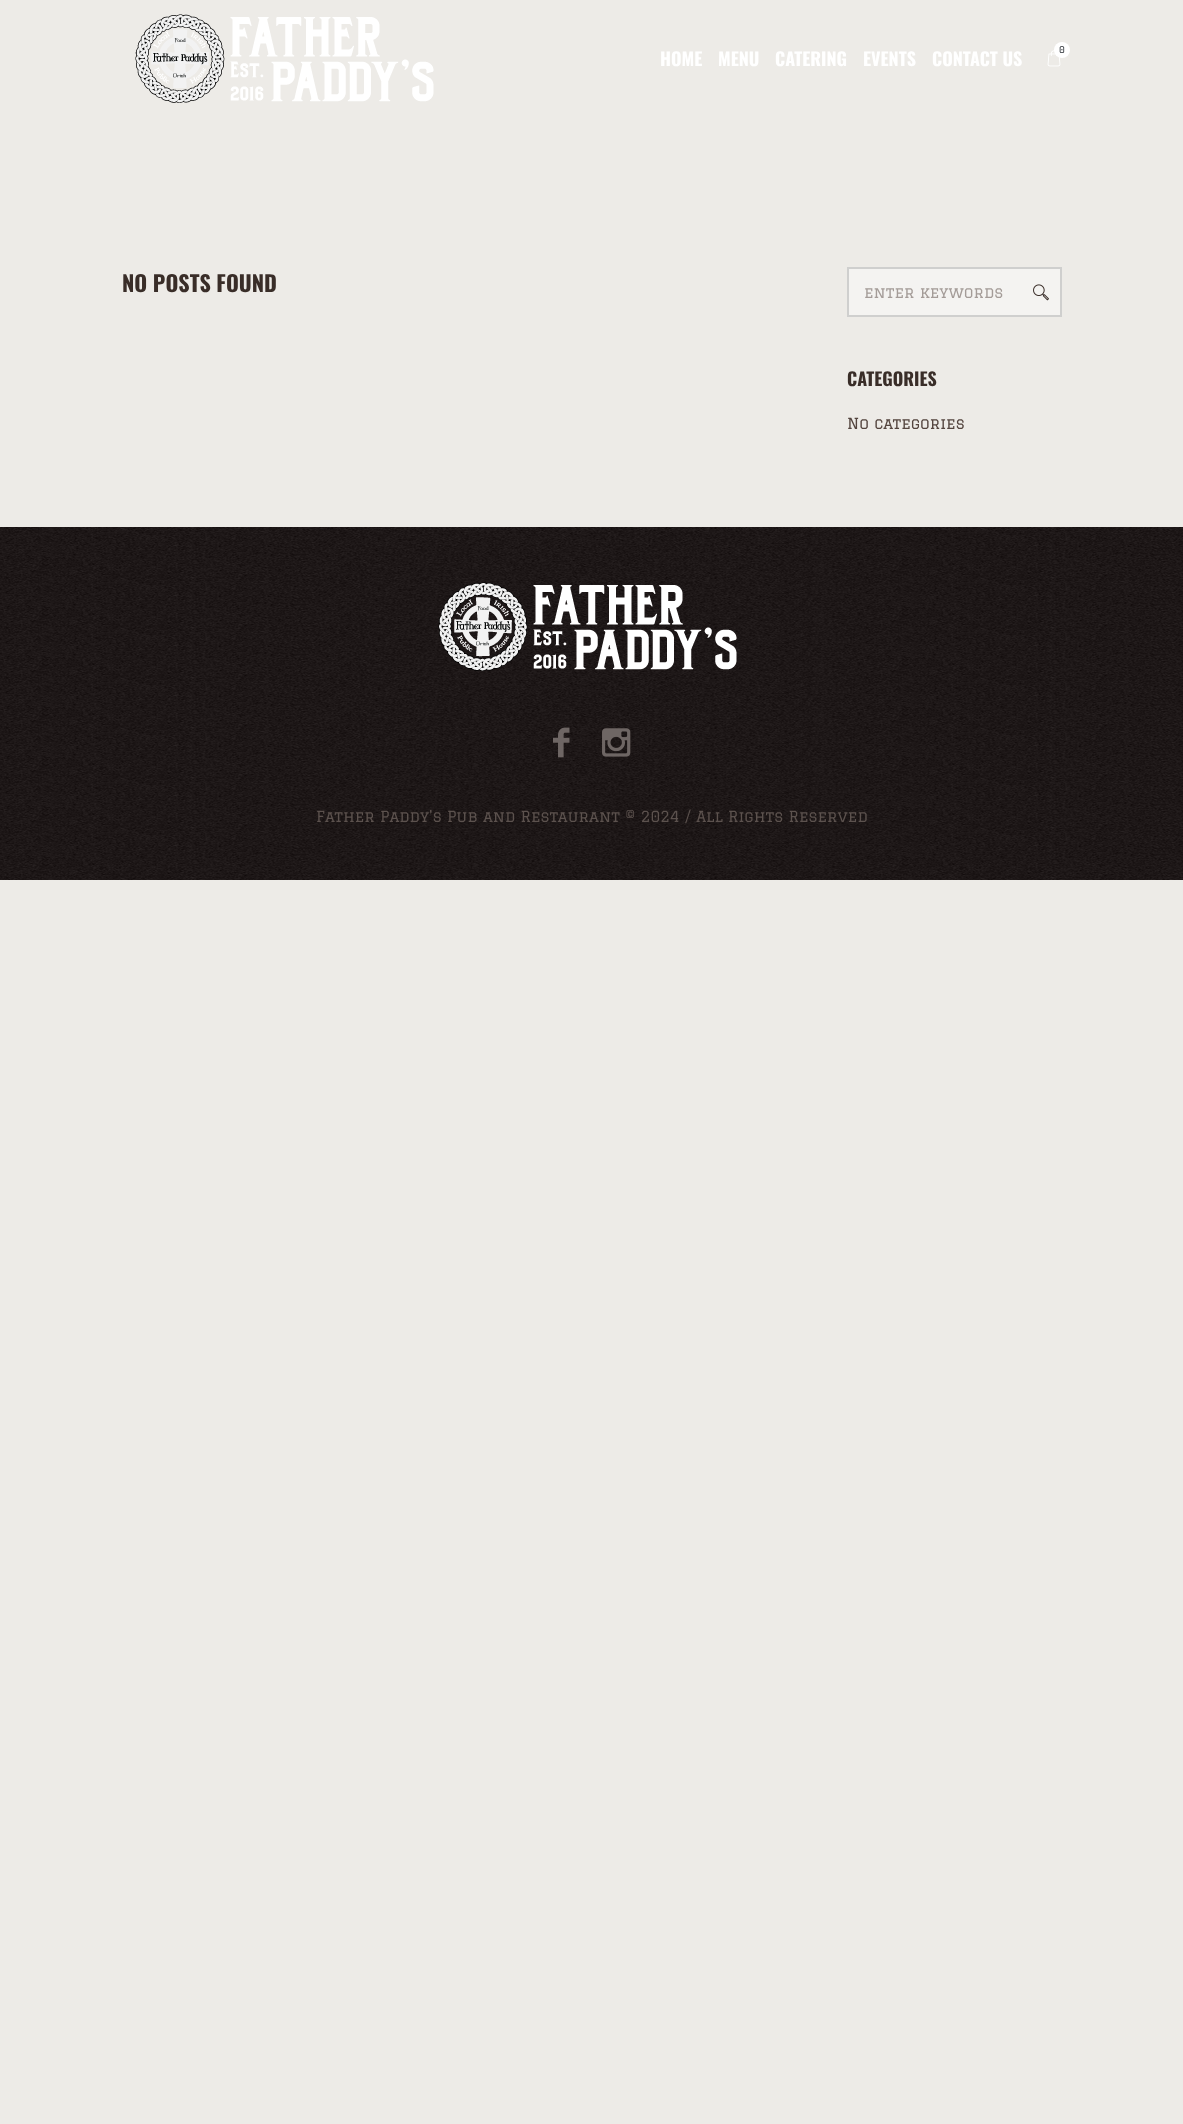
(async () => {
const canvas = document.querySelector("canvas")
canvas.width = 1183
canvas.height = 2124
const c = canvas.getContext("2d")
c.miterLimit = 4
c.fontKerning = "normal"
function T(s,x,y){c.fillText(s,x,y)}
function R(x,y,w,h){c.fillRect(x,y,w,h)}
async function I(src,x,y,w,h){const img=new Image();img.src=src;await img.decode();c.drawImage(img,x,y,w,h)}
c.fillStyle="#edebe7"
R(0,0,1183,2124)
await I("1.png",135,14,299,89)
await I("2.png",1047,50,14,17)
c.fillStyle="#fff"
c.beginPath()
c.arc(1062,50,8,0,7)
c.fill()
c.font="9px Graduate"
c.fillStyle="#24292f"
T("0",1059,53)
c.font="bold 18px Oswald"
c.fillStyle="#fff"
T("HOME",660,66)
T("MENU",718,66)
T("CATERING",775,66)
T("EVENTS",863,66)
T("CONTACT US",932,66)
c.font="bold 22px Oswald"
c.fillStyle="#392d28"
T("NO POSTS FOUND",122,292)
c.fillStyle="#f4f3f1"
c.beginPath()
c.rect(848,268,213,48)
c.fill()
c.strokeStyle="#cfcfce"
c.lineWidth=2
c.stroke()
c.font="15px Graduate"
c.fillStyle="#a49c98"
T("enter keywords",864,298)
await I("3.png",1033,284,16,17)
c.font="bold 18px Oswald"
c.fillStyle="#392d28"
T("CATEGORIES",847,386)
c.font="15px Graduate"
c.fillStyle="#54453f"
T("No categories",847,429)
await I("4.png",0,527,1183,353)
await I("5.png",438,582,299,89)
await I("6.png",553,727,17,31)
await I("7.png",602,728,29,29)
c.fillStyle="#5c524e"
T("Father Paddy's Pub and Restaurant © 2024 / All Rights Reserved",316,822)
})()
